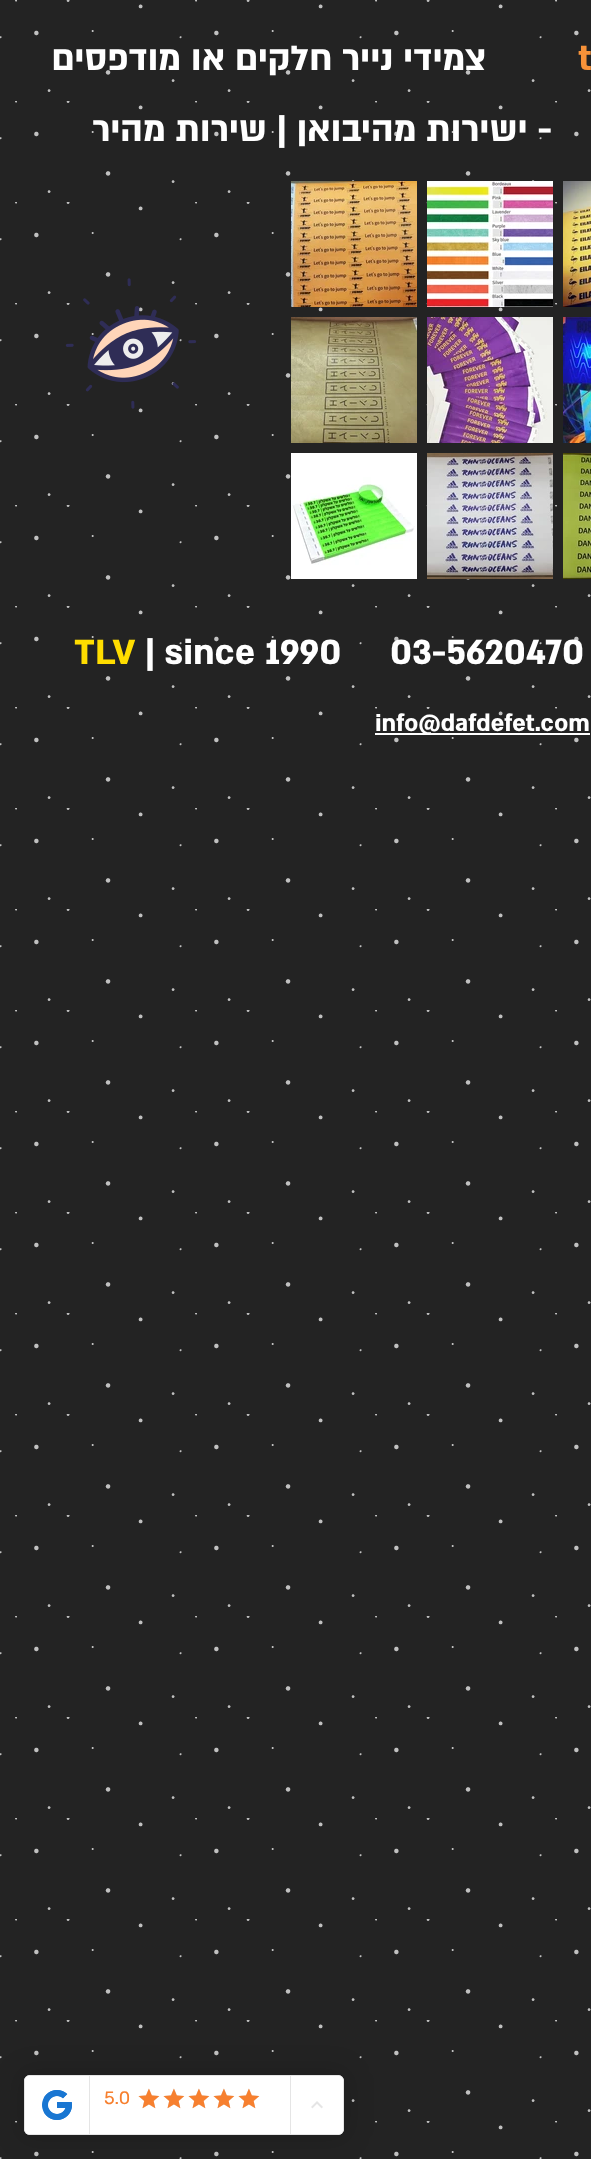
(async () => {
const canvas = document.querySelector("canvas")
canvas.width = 591
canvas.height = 2159
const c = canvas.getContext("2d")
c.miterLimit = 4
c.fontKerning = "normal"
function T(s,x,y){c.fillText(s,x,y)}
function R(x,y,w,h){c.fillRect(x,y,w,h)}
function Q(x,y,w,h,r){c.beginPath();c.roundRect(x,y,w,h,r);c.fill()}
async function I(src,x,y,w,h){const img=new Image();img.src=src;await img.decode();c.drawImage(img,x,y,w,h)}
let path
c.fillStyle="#232323"
R(0,0,591,2159)
await I("1.png",0,0,591,2159)
c.font="bold 40px 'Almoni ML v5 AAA'"
c.fillStyle="#f79239"
T("t",578,70)
c.direction="rtl"
c.fillStyle="#fff"
T("צמידי נייר חלקים או מודפסים",486,70)
T("- ישירות מהיבואן | שירות מהיר",552,141)
await I("2.png",563,181,28,126)
await I("3.png",427,181,126,126)
await I("4.png",291,181,126,126)
await I("5.png",563,317,28,126)
await I("6.png",427,317,126,126)
await I("7.png",291,317,126,126)
await I("8.png",563,453,28,126)
await I("9.png",427,453,126,126)
await I("10.png",291,453,126,126)
await I("11.png",65,278,132,131)
c.direction="ltr"
T("03-5620470",390,664)
T("| since 1990",145,664)
c.fillStyle="#fd0"
T("TLV",74,664)
c.fillStyle="#fff"
R(375,733,215,2)
c.font="bold 27px 'Almoni ML v5 AAA'"
T("info@dafdefet.com",375,731)
c.fillStyle="#0000001f"
c.filter="blur(12px)"
c.beginPath()
c.roundRect(18,2069,332,72,12)
c.fill()
c.filter="none"
c.fillStyle="#fff"
Q(24,2075,320,60,6)
c.fillStyle="#e5e5e5"
path = new Path2D("M30 2075c-3 0-6 3-6 6v48c0 3 3 6 6 6h308c3 0 6-3 6-6v-48c0-3-3-6-6-6zm-1 1c-2 0-4 2-4 4v50c0 2 2 4 4 4h310c2 0 4-2 4-4v-50c0-2-2-4-4-4z")
c.fill(path,"evenodd")
await I("12.png",311,2101,12,8)
R(290,2076,1,58)
await I("14.png",238,2089,21,19)
await I("13.png",238,2088,22,21)
await I("14.png",213,2089,21,19)
await I("13.png",213,2088,22,21)
await I("14.png",188,2089,21,19)
await I("13.png",188,2088,22,21)
await I("14.png",163,2089,21,19)
await I("13.png",163,2088,22,21)
await I("14.png",138,2089,21,19)
await I("13.png",138,2088,22,21)
c.font="18px Rubik"
c.fillStyle="#f7802f"
T("5.0",104,2104)
c.fillStyle="#fff"
c.beginPath()
c.roundRect(25,2076,65,58,[5,0,0,5])
c.fill()
c.fillStyle="#e5e5e5"
R(89,2076,1,58)
await I("15.png",42,2090,30,30)
})()
